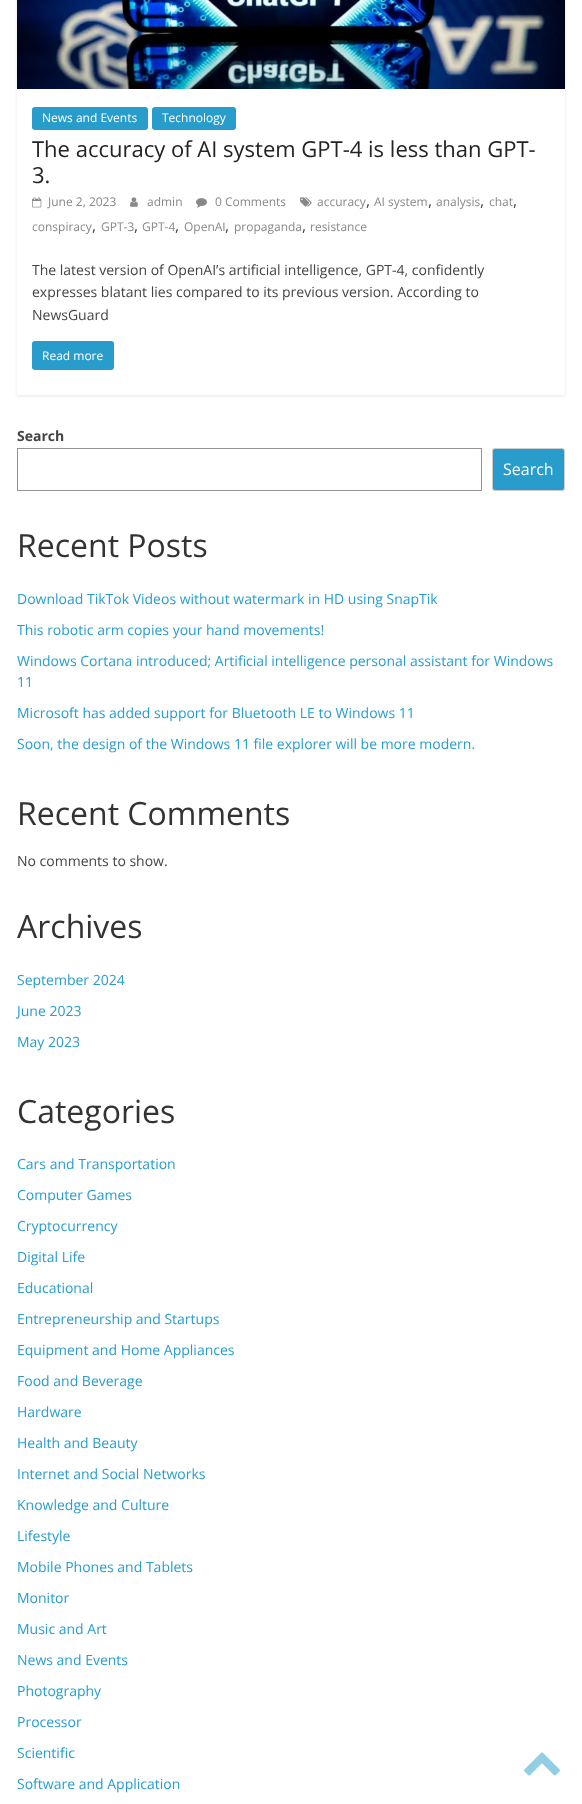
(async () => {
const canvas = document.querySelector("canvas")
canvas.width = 582
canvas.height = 1804
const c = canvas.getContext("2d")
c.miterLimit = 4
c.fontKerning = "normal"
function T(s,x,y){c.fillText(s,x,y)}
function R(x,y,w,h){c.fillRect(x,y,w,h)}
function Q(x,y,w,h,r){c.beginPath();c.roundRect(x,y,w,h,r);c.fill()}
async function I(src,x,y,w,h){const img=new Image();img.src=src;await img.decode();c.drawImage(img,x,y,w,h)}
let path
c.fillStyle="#fff"
R(0,0,582,1804)
c.save()
path = new Path2D("M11 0h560v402h-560zm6-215h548v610h-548z")
c.clip(path,"evenodd")
c.fillStyle="#0000001a"
c.filter="blur(1.5px)"
c.beginPath()
c.rect(17,-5,548,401)
c.fill()
c.filter="none"
c.restore()
await I("1.png",17,0,548,89)
c.fillStyle="#289dcc"
Q(32,107,116,23,3)
c.font="12px Open Sans"
c.fillStyle="#fff"
T("News and Events",42,122)
c.fillStyle="#289dcc"
Q(152,107,84,23,3)
c.fillStyle="#fff"
T("Technology",162,122)
c.font="22px Open Sans"
c.fillStyle="#232323"
T("The accuracy of AI system GPT-4 is less than GPT-",32,157)
T("3.",32,183)
await I("2.png",300,197,12,10)
c.font="12px Open Sans"
c.fillStyle="#888"
T("accuracy",317,206)
c.font="16px Open Sans"
c.fillStyle="#444"
T(",",366,206)
c.font="12px Open Sans"
c.fillStyle="#888"
T("AI system",374,206)
c.font="16px Open Sans"
c.fillStyle="#444"
T(",",428,206)
c.font="12px Open Sans"
c.fillStyle="#888"
T("analysis",436,206)
c.font="16px Open Sans"
c.fillStyle="#444"
T(",",480,206)
c.font="12px Open Sans"
c.fillStyle="#888"
T("chat",489,206)
c.font="16px Open Sans"
c.fillStyle="#444"
T(",",513,206)
c.font="12px Open Sans"
c.fillStyle="#888"
T("conspiracy",32,231)
c.font="16px Open Sans"
c.fillStyle="#444"
T(",",92,231)
c.font="12px Open Sans"
c.fillStyle="#888"
T("GPT-3",101,231)
c.font="16px Open Sans"
c.fillStyle="#444"
T(",",134,231)
c.font="12px Open Sans"
c.fillStyle="#888"
T("GPT-4",142,231)
c.font="16px Open Sans"
c.fillStyle="#444"
T(",",175,231)
c.font="12px Open Sans"
c.fillStyle="#888"
T("OpenAI",184,231)
c.font="16px Open Sans"
c.fillStyle="#444"
T(",",225,231)
c.font="12px Open Sans"
c.fillStyle="#888"
T("propaganda",234,231)
c.font="16px Open Sans"
c.fillStyle="#444"
T(",",302,231)
c.font="12px Open Sans"
c.fillStyle="#888"
T("resistance",310,231)
await I("3.png",32,197,10,11)
T("June 2, 2023",48,206)
await I("4.png",130,197,8,10)
T("admin",147,206)
await I("5.png",196,198,11,10)
T("0 Comments",215,206)
c.font="14px Open Sans"
c.fillStyle="#444"
T("The latest version of OpenAI’s artificial intelligence, GPT-4, confidently",32,275)
T("expresses blatant lies compared to its previous version. According to",32,297)
T("NewsGuard",32,320)
c.fillStyle="#289dcc"
Q(32,341,82,29,3)
c.font="12px Open Sans"
c.fillStyle="#fff"
T("Read more",42,360)
c.font="bold 14px Open Sans"
c.fillStyle="#444"
T("Search",17,441)
c.strokeStyle="#949494"
c.strokeRect(17.5,448.5,464,42)
c.fillStyle="#289dcc"
c.beginPath()
c.roundRect(492.5,448.5,72,42,2.5)
c.fill()
c.strokeStyle="#ccc"
c.stroke()
c.font="16px Open Sans"
c.fillStyle="#fff"
T("Search",503,475)
c.font="32px Open Sans"
c.fillStyle="#333"
T("Recent Posts",17,557)
c.font="14px Open Sans"
c.fillStyle="#289dcc"
T("Download TikTok Videos without watermark in HD using SnapTik",17,604)
T("This robotic arm copies your hand movements!",17,635)
T("Windows Cortana introduced; Artificial intelligence personal assistant for Windows",17,666)
T("11",17,687)
T("Microsoft has added support for Bluetooth LE to Windows 11",17,718)
T("Soon, the design of the Windows 11 file explorer will be more modern.",17,749)
c.font="32px Open Sans"
c.fillStyle="#333"
T("Recent Comments",17,825)
c.font="14px Open Sans"
c.fillStyle="#444"
T("No comments to show.",17,866)
c.font="32px Open Sans"
c.fillStyle="#333"
T("Archives",17,938)
c.font="14px Open Sans"
c.fillStyle="#289dcc"
T("September 2024",17,985)
T("June 2023",17,1016)
T("May 2023",17,1047)
c.font="32px Open Sans"
c.fillStyle="#333"
T("Categories",17,1123)
c.font="14px Open Sans"
c.fillStyle="#289dcc"
T("Cars and Transportation",17,1169)
T("Computer Games",17,1200)
T("Cryptocurrency",17,1231)
T("Digital Life",17,1262)
T("Educational",17,1293)
T("Entrepreneurship and Startups",17,1324)
T("Equipment and Home Appliances",17,1355)
T("Food and Beverage",17,1386)
T("Hardware",17,1417)
T("Health and Beauty",17,1448)
T("Internet and Social Networks",17,1479)
T("Knowledge and Culture",17,1510)
T("Lifestyle",17,1541)
T("Mobile Phones and Tablets",17,1572)
T("Monitor",17,1603)
T("Music and Art",17,1634)
T("News and Events",17,1665)
T("Photography",17,1696)
T("Processor",17,1727)
T("Scientific",17,1758)
T("Software and Application",17,1789)
await I("6.png",524,1752,36,24)
})()
